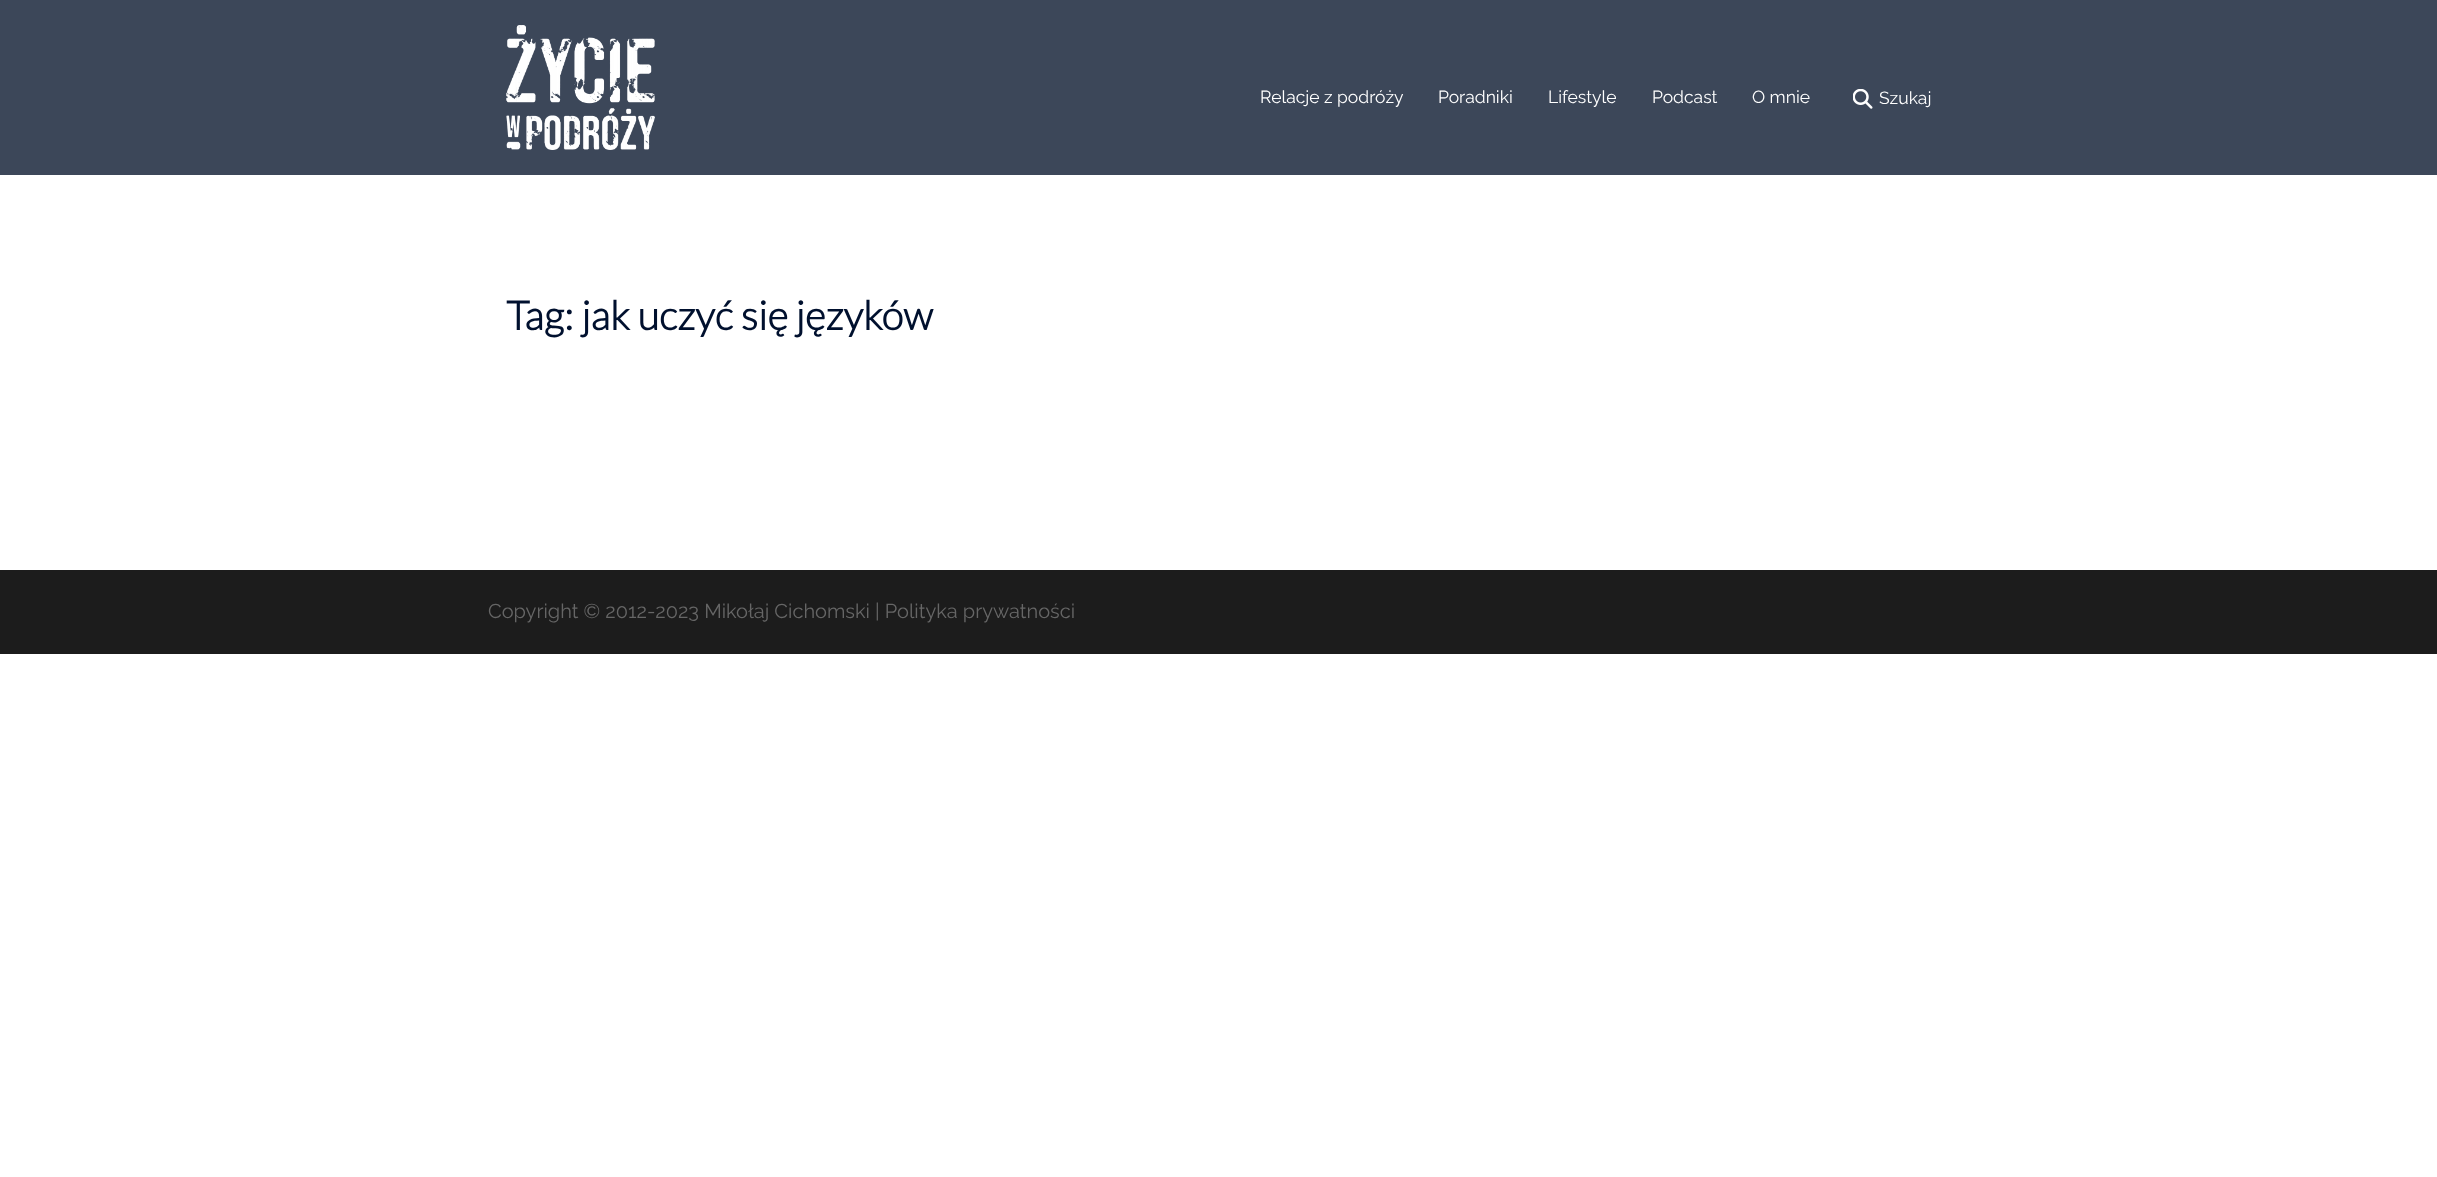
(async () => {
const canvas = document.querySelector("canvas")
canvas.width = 2437
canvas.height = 1177
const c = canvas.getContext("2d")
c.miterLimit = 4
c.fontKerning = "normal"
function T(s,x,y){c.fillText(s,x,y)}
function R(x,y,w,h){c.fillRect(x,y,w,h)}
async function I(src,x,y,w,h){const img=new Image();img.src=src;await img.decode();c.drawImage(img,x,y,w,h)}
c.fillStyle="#fff"
R(0,0,2437,1177)
c.fillStyle="#3c4759"
R(0,0,2437,175)
await I("1.png",506,25,149,125)
c.font="100 17.5px Raleway"
c.fillStyle="#fff"
T("Relacje z podróży",1260,103)
T("Poradniki",1438,103)
T("Lifestyle",1548,103)
T("Podcast",1652,103)
T("O mnie",1752,103)
await I("2.png",1853,89,20,20)
T("Szukaj",1879,104)
c.font="bold 40px Lato"
c.fillStyle="#00102e"
T("Tag: jak uczyć się języków",506,330)
c.fillStyle="#1c1c1c"
R(0,570,2437,84)
c.font="100 20px Raleway"
c.fillStyle="#666"
T("Copyright © 2012-2023 Mikołaj Cichomski | Polityka prywatności",488,618)
})()
